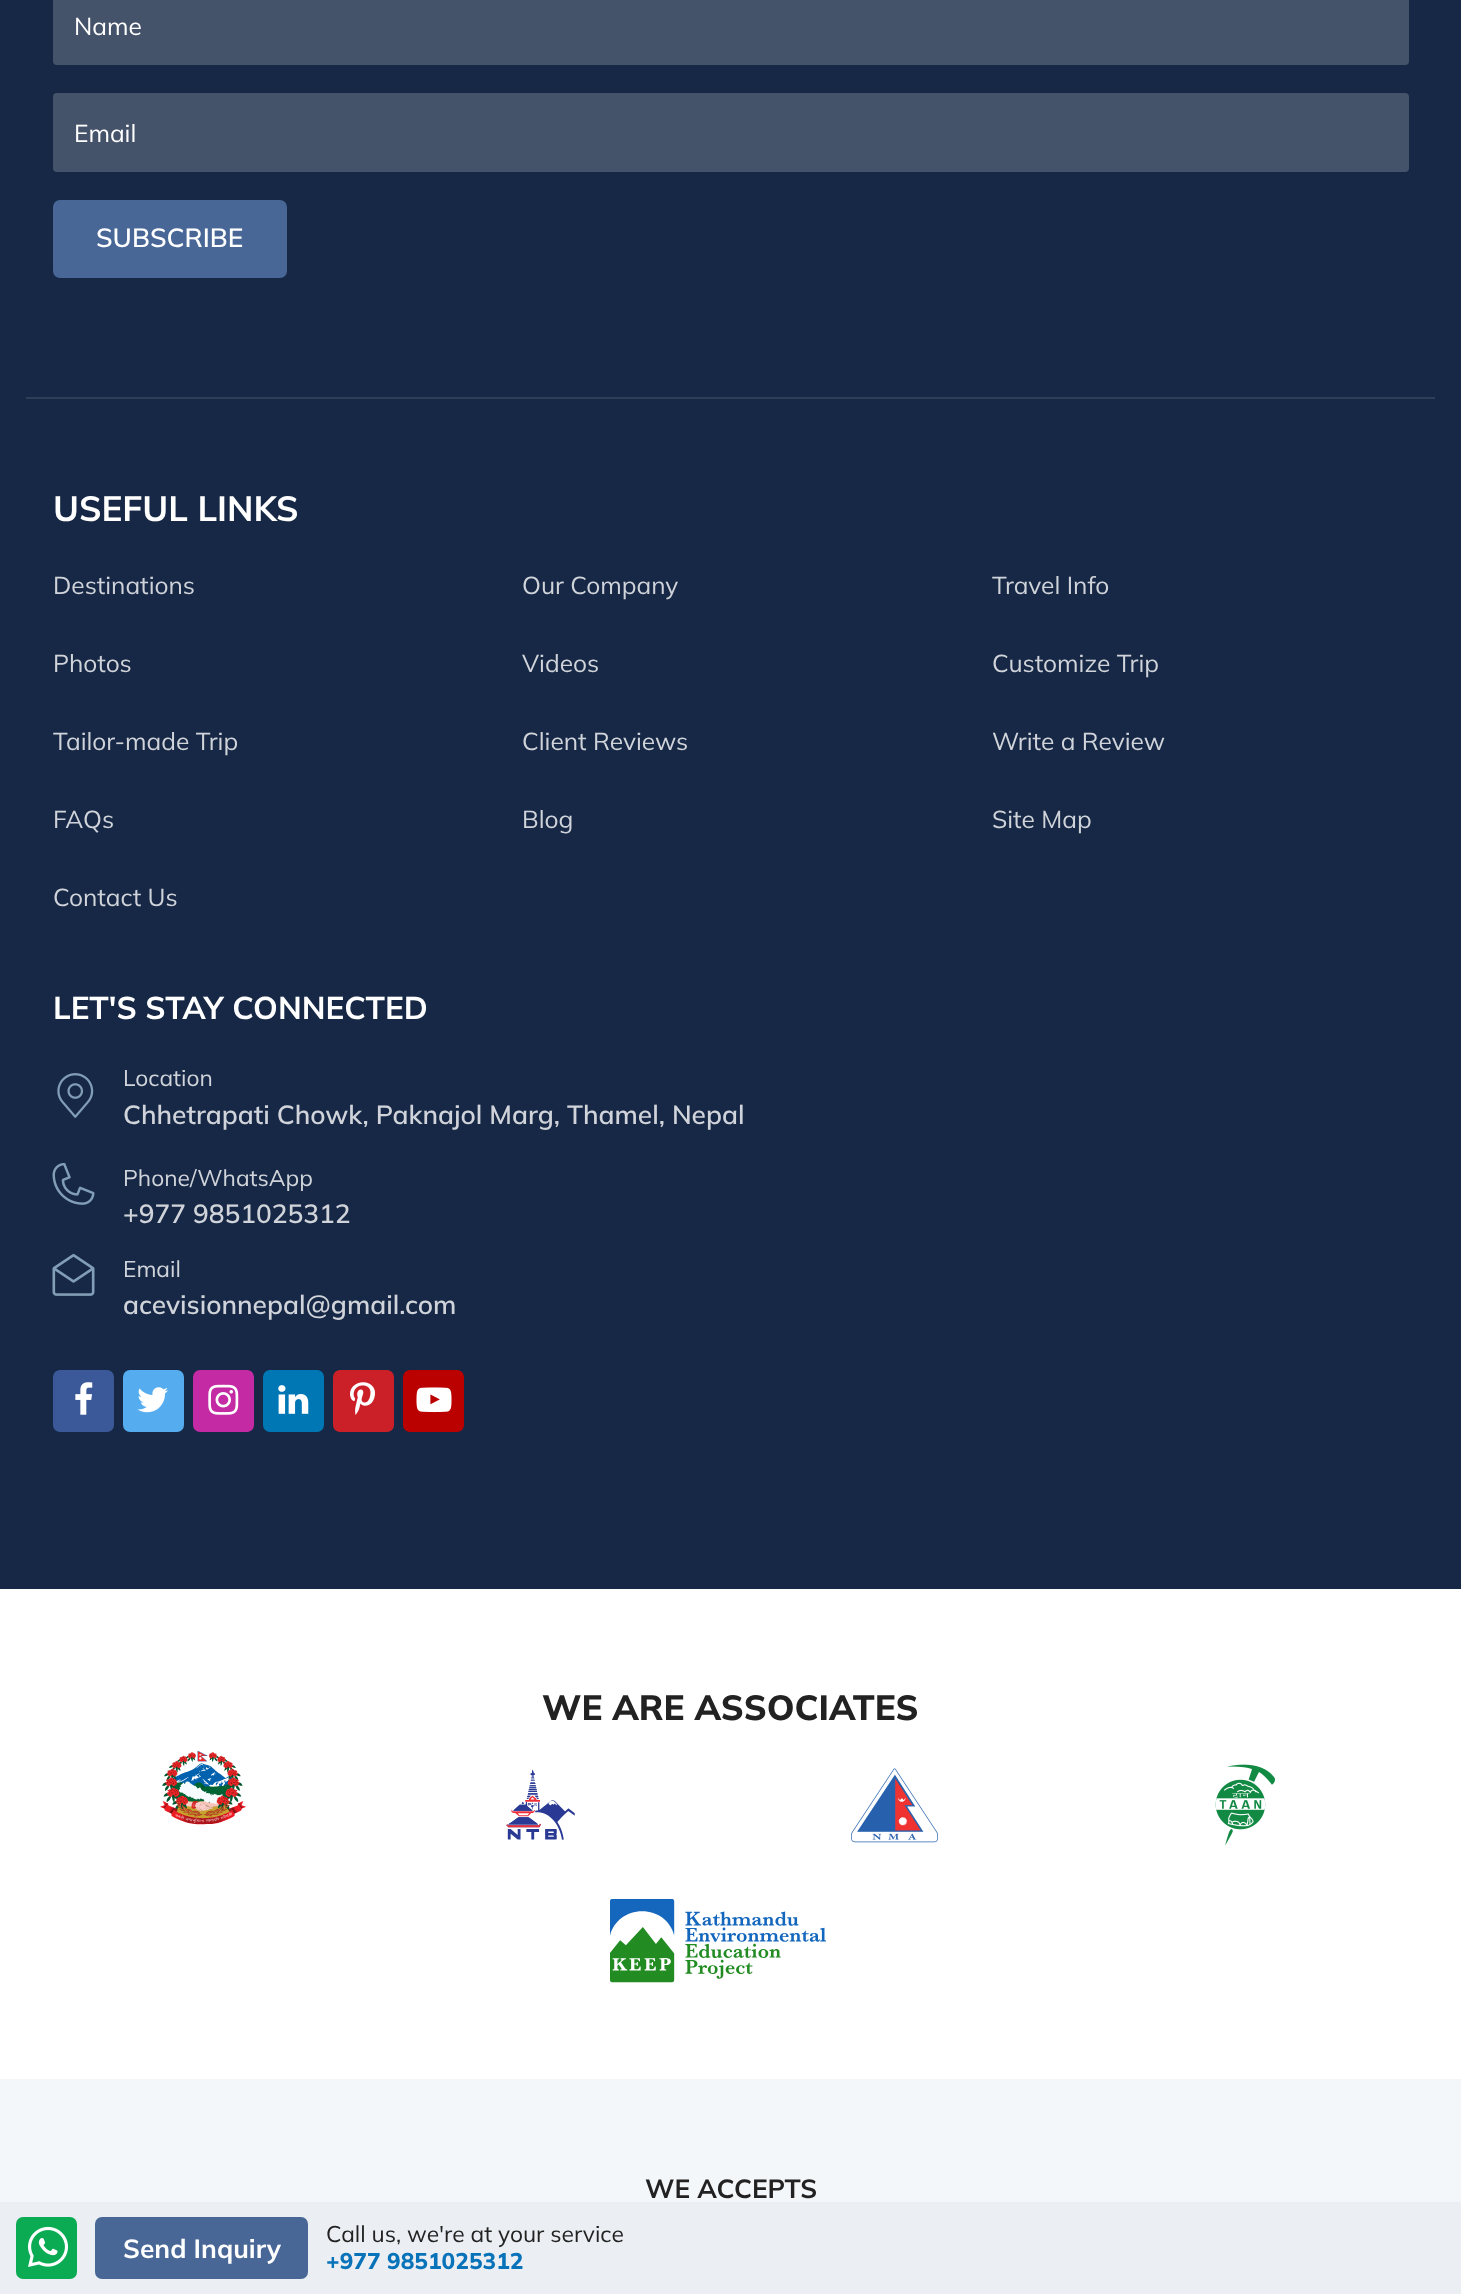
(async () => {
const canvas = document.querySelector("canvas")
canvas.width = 1461
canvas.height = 2294
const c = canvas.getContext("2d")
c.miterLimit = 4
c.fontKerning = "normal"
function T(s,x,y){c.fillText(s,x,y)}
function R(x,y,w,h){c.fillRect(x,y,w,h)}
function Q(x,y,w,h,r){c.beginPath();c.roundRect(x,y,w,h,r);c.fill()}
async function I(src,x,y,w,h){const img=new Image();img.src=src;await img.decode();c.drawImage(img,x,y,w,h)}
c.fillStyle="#fff"
R(0,0,1461,2294)
c.fillStyle="#162845"
R(0,0,1461,1589)
c.fillStyle="#2d3e58"
R(26,397,1409,2)
c.fillStyle="#45536a"
Q(53,-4,1356,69,4)
c.font="24.5px Mulish"
c.fillStyle="#fff"
T("Name",74,35)
c.fillStyle="#45536a"
Q(53,93,1356,79,4)
c.fillStyle="#fff"
T("Email",74,142)
c.fillStyle="#486696"
c.beginPath()
c.roundRect(54,201,232,76,6)
c.fill()
c.strokeStyle="#486696"
c.lineWidth=2
c.stroke()
c.font="600 26.25px Mulish"
c.fillStyle="#fff"
T("SUBSCRIBE",96,247)
c.font="bold 35px Mulish"
T("USEFUL LINKS",53,521)
c.font="24.5px Mulish"
c.fillStyle="#d0d4da"
T("Destinations",53,594)
T("Our Company",522,594)
T("Travel Info",992,594)
T("Photos",53,672)
T("Videos",522,672)
T("Customize Trip",992,672)
T("Tailor-made Trip",53,750)
T("Client Reviews",522,750)
T("Write a Review",992,750)
T("FAQs",53,828)
T("Blog",522,828)
T("Site Map",992,828)
T("Contact Us",53,906)
c.font="bold 31.5px Mulish"
c.fillStyle="#fff"
T("LET'S STAY CONNECTED",53,1019)
await I("1.png",57,1073,37,45)
c.font="22.75px Mulish"
c.fillStyle="#d0d4da"
T("Location",123,1086)
c.font="600 26.25px Mulish"
T("Chhetrapati Chowk, Paknajol Marg, Thamel, Nepal",123,1124)
await I("2.png",52,1162,43,43)
c.font="22.75px Mulish"
T("Phone/WhatsApp",123,1186)
c.font="600 26.25px Mulish"
T("+977 9851025312",123,1223)
await I("3.png",52,1253,43,43)
c.font="22.75px Mulish"
T("Email",123,1277)
c.font="600 26.25px Mulish"
T("acevisionnepal@gmail.com",123,1314)
c.fillStyle="#3b5998"
Q(53,1370,61,62,7)
await I("4.png",75,1382,18,33)
c.fillStyle="#55acee"
Q(123,1370,61,62,7)
await I("5.png",137,1387,31,26)
c.fillStyle="#c32aa3"
Q(193,1370,61,62,7)
await I("6.png",208,1384,31,31)
c.fillStyle="#0077b5"
Q(263,1370,61,62,7)
await I("7.png",278,1385,31,29)
c.fillStyle="#cb2027"
Q(333,1370,61,62,7)
await I("8.png",350,1382,25,33)
c.fillStyle="#b00"
Q(403,1370,61,62,7)
await I("9.png",416,1387,36,26)
c.font="800 35px Mulish"
c.fillStyle="#222"
T("WE ARE ASSOCIATES",542,1720)
await I("10.png",160,1750,86,75)
await I("11.png",506,1769,69,71)
await I("12.png",851,1768,87,75)
await I("13.png",1215,1764,60,82)
await I("14.png",610,1899,216,84)
c.fillStyle="#f4f7fa"
R(0,2079,1461,123)
c.font="bold 26.25px Mulish"
c.fillStyle="#222"
T("WE ACCEPTS",645,2198)
c.fillStyle="#ebeef3"
R(0,2202,1461,92)
c.fillStyle="#0bab54"
Q(16,2217,61,62,7)
await I("15.png",28,2226,41,41)
c.fillStyle="#486696"
c.beginPath()
c.roundRect(96,2218,211,60,6)
c.fill()
c.stroke()
c.fillStyle="#fff"
T("Send Inquiry",123,2258)
c.font="22.75px Mulish"
c.fillStyle="#222"
T("Call us, we're at your service",326,2242)
c.font="800 22.75px Mulish"
c.fillStyle="#0973ba"
T("+977 9851025312",326,2269)
})()
